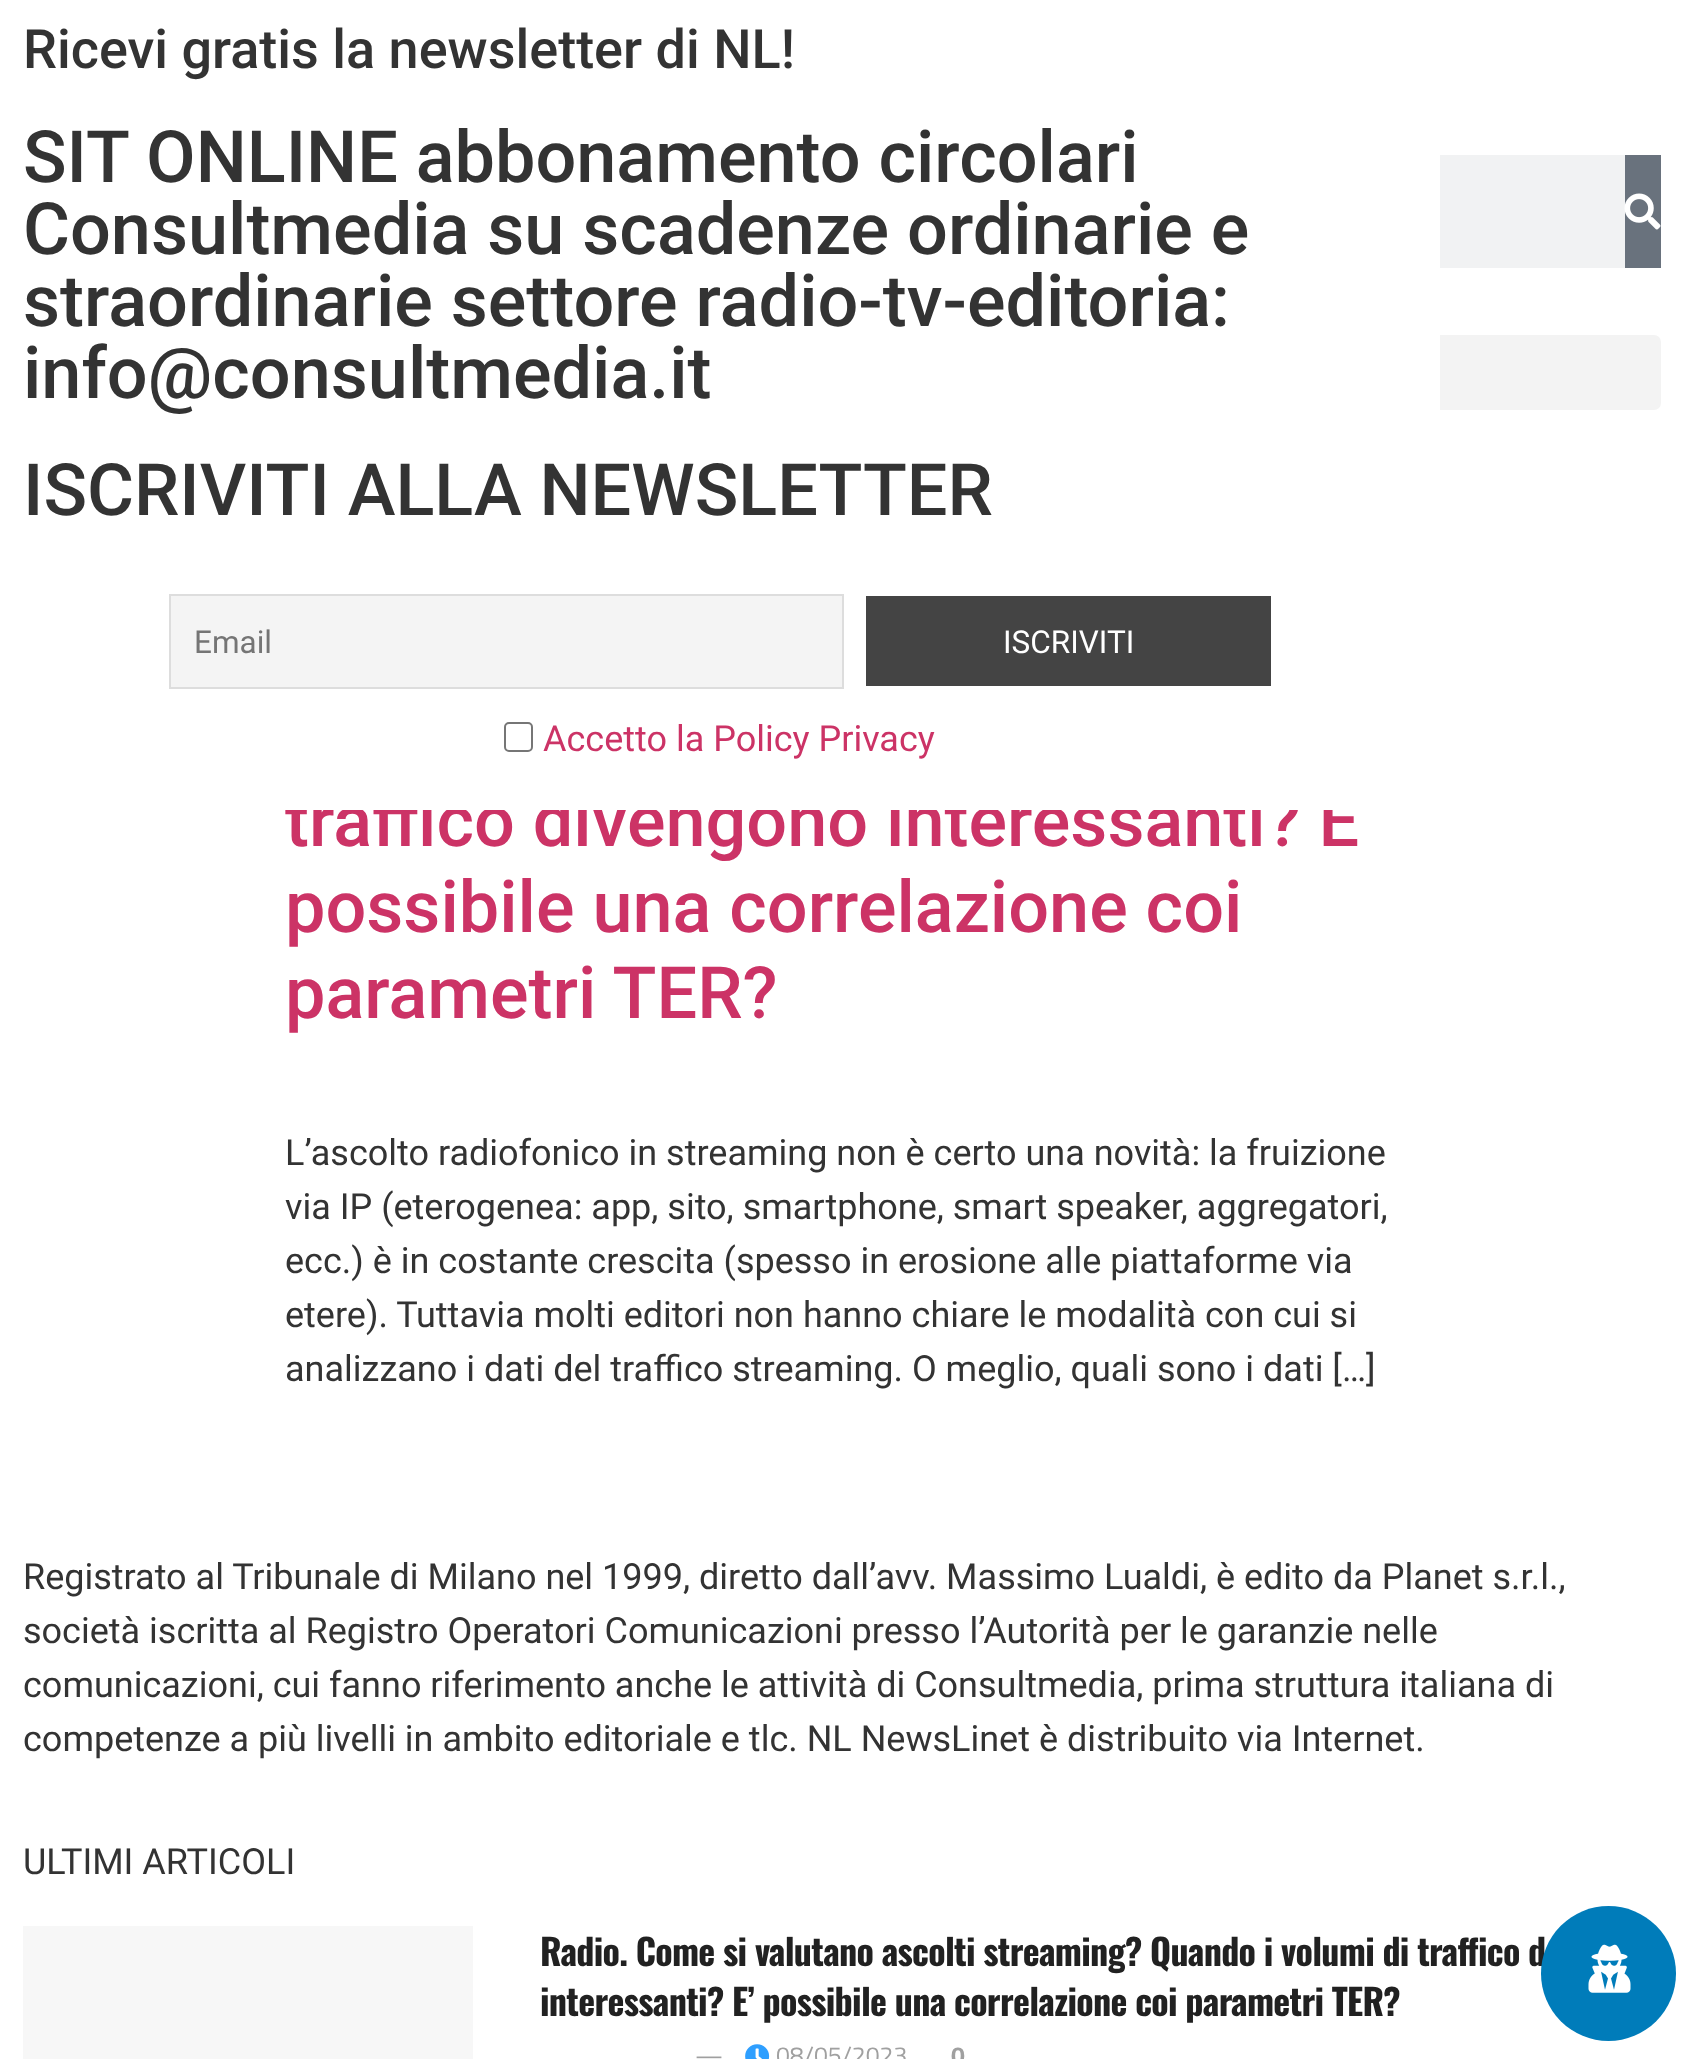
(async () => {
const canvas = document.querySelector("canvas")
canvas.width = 1694
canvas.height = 2059
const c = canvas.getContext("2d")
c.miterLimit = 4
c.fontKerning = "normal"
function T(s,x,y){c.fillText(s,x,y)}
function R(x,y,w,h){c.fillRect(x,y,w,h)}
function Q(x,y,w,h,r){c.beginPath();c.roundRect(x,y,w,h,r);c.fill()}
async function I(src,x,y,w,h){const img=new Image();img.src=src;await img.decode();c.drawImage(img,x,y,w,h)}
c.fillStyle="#fff"
R(0,0,1694,2059)
c.fillStyle="#f3f3f3"
Q(34,335,1627,75,7)
c.font="500 72px Roboto"
c.fillStyle="#c36"
T("traffico divengono interessanti? E",285,846)
c.fillStyle="#fff"
R(34,335,1406,475)
c.font="500 54px Roboto"
c.fillStyle="#333"
T("Ricevi gratis la newsletter di NL!",23,68)
c.font="500 72px Roboto"
T("SIT ONLINE abbonamento circolari",23,182)
T("Consultmedia su scadenze ordinarie e",23,254)
T("straordinarie settore radio-tv-editoria:",23,326)
T("info@consultmedia.it",23,398)
T("ISCRIVITI ALLA NEWSLETTER",23,515)
c.fillStyle="#f4f4f4"
c.beginPath()
c.rect(170,595,673,93)
c.fill()
c.strokeStyle="#ddd"
c.lineWidth=2
c.stroke()
c.font="31.5px Roboto"
c.fillStyle="#757575"
T("Email",194,653)
c.fillStyle="#444"
R(866,596,405,90)
c.fillStyle="#fff"
T("ISCRIVITI",1003,653)
c.beginPath()
c.roundRect(505,723,27,28,4)
c.strokeStyle="#767676"
c.stroke()
c.font="36px Roboto"
c.fillStyle="#c36"
T("Accetto la Policy Privacy",543,751)
c.fillStyle="#f1f2f3"
R(1440,155,185,113)
c.fillStyle="#69727d"
R(1625,155,36,113)
await I("1.png",1624,193,37,37)
c.font="500 72px Roboto"
c.fillStyle="#c36"
T("possibile una correlazione coi",285,932)
T("parametri TER?",285,1018)
c.font="36px Roboto"
c.fillStyle="#333"
T("L’ascolto radiofonico in streaming non è certo una novità: la fruizione",285,1165)
T("via IP (eterogenea: app, sito, smartphone, smart speaker, aggregatori,",285,1219)
T("ecc.) è in costante crescita (spesso in erosione alle piattaforme via",285,1273)
T("etere). Tuttavia molti editori non hanno chiare le modalità con cui si",285,1327)
T("analizzano i dati del traffico streaming. O meglio, quali sono i dati […]",285,1381)
T("Registrato al Tribunale di Milano nel 1999, diretto dall’avv. Massimo Lualdi, è edito da Planet s.r.l.,",23,1589)
T("società iscritta al Registro Operatori Comunicazioni presso l’Autorità per le garanzie nelle",23,1643)
T("comunicazioni, cui fanno riferimento anche le attività di Consultmedia, prima struttura italiana di",23,1697)
T("competenze a più livelli in ambito editoriale e tlc. NL NewsLinet è distribuito via Internet.",23,1751)
T("ULTIMI ARTICOLI",23,1874)
c.fillStyle="#f7f7f7"
R(23,1926,450,133)
c.letterSpacing="-0.72px"
c.font="bold 36px Oswald"
c.fillStyle="#212121"
T("Radio. Come si valutano ascolti streaming? Quando i volumi di traffico d",540,1966)
T("interessanti? E’ possibile una correlazione coi parametri TER?",540,2016)
c.letterSpacing="0px"
c.font="24.75px Titillium Web"
c.fillStyle="#a0a0a0"
T("—",695,2064)
await I("2.png",745,2044,25,15)
T("08/05/2023",776,2064)
c.font="bold 24.75px Titillium Web"
T("0",951,2064)
c.fillStyle="#007cba"
c.beginPath()
c.arc(1608.5,1973.5,67.5,0,7)
c.fill()
await I("3.png",1588,1944,43,49)
})()
